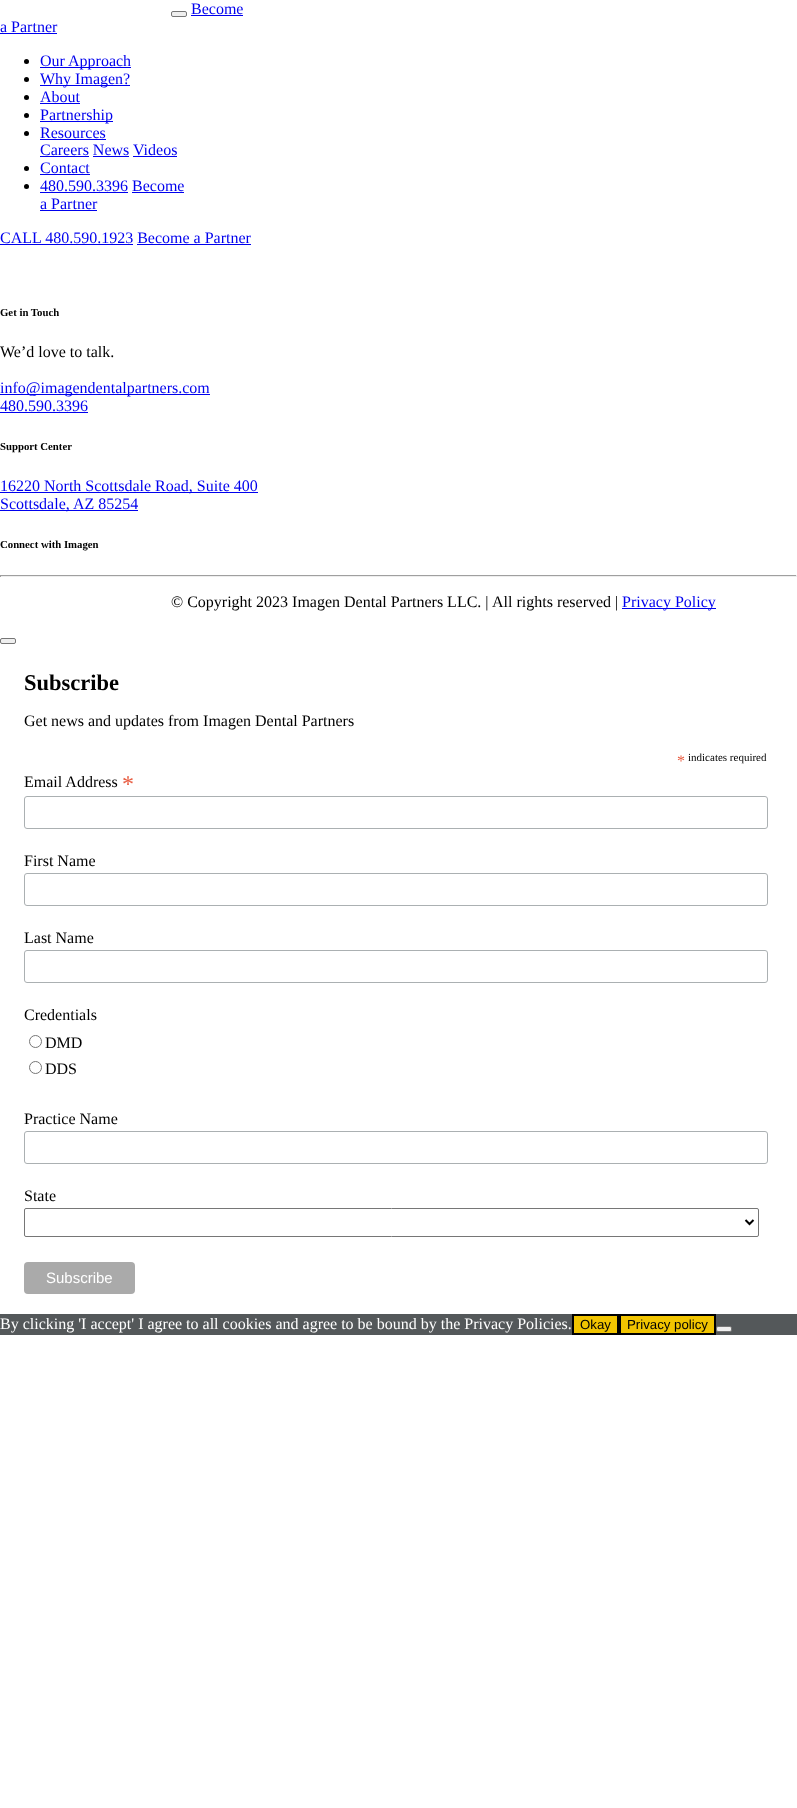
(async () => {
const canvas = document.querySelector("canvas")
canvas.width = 797
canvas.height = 1808
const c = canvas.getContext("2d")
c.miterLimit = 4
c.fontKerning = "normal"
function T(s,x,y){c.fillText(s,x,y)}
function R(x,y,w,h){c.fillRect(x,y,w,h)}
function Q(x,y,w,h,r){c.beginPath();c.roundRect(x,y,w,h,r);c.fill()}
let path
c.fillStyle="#fff"
R(0,0,797,1808)
c.fillStyle="#efefef"
c.beginPath()
c.roundRect(171.5,11.5,15,5,1.5)
c.fill()
c.strokeStyle="#767676"
c.stroke()
c.font="16px Liberation Serif"
c.fillStyle="#00e"
T("Become",191,14)
R(191,15,52,1)
T("a Partner",0,32)
R(0,33,57,1)
c.fillStyle="#000"
c.beginPath()
c.arc(26.5,61.5,2.5,0,7)
c.fill()
c.fillStyle="#00e"
R(40,67,91,1)
T("Our Approach",40,66)
c.fillStyle="#000"
c.beginPath()
c.arc(26.5,79.5,2.5,0,7)
c.fill()
c.fillStyle="#00e"
R(40,85,90,1)
T("Why Imagen?",40,84)
c.fillStyle="#000"
c.beginPath()
c.arc(26.5,97.5,2.5,0,7)
c.fill()
c.fillStyle="#00e"
T("About",40,102)
R(40,103,40,1)
c.fillStyle="#000"
c.beginPath()
c.arc(26.5,115.5,2.5,0,7)
c.fill()
c.fillStyle="#00e"
R(40,121,73,1)
T("Partnership",40,120)
c.fillStyle="#000"
c.beginPath()
c.arc(26.5,133.5,2.5,0,7)
c.fill()
c.fillStyle="#00e"
T("Resources",40,138)
R(40,139,66,1)
T("Careers News Videos",40,155)
R(40,156,49,1)
R(93,156,36,1)
R(133,156,44,1)
c.fillStyle="#000"
c.beginPath()
c.arc(26.5,168.5,2.5,0,7)
c.fill()
c.fillStyle="#00e"
T("Contact",40,173)
R(40,174,50,1)
c.fillStyle="#000"
c.beginPath()
c.arc(26.5,186.5,2.5,0,7)
c.fill()
c.fillStyle="#00e"
T("480.590.3396 Become",40,191)
R(40,192,88,1)
T("a Partner",40,209)
R(132,192,52,1)
R(40,210,57,1)
T("CALL 480.590.1923 Become a Partner",0,243)
R(0,244,133,1)
R(137,244,114,1)
c.font="bold 10.75px Liberation Serif"
c.fillStyle="#000"
T("Get in Touch",0,316)
c.font="16px Liberation Serif"
T("We’d love to talk.",0,357)
c.fillStyle="#00e"
R(0,394,210,1)
T("info@imagendentalpartners.com",0,393)
T("480.590.3396",0,411)
R(0,412,88,1)
c.font="bold 10.75px Liberation Serif"
c.fillStyle="#000"
T("Support Center",0,450)
c.fillStyle="#00e"
R(0,492,258,1)
c.font="16px Liberation Serif"
T("16220 North Scottsdale Road, Suite 400",0,491)
R(0,510,138,1)
T("Scottsdale, AZ 85254",0,509)
c.font="bold 10.75px Liberation Serif"
c.fillStyle="#000"
T("Connect with Imagen",0,548)
c.fillStyle="#9f9f9f"
R(0,575,797,1)
c.fillStyle="#eee"
R(796,575,1,2)
R(0,576,797,1)
c.fillStyle="#9f9f9f"
R(0,575,1,2)
c.font="16px Liberation Serif"
c.fillStyle="#000"
T("© Copyright 2023 Imagen Dental Partners LLC. |",171,607)
T("All rights reserved |",492,607)
c.fillStyle="#00e"
R(622,608,94,1)
T("Privacy Policy",622,607)
c.fillStyle="#efefef"
c.beginPath()
c.roundRect(.5,638.5,15,5,1.5)
c.fill()
c.stroke()
c.font="bold 22.5px Liberation Serif"
c.fillStyle="#000"
T("Subscribe",24,690)
c.font="16px Liberation Serif"
T("Get news and updates from Imagen Dental Partners",24,726)
c.fillStyle="#e85c41"
T("*",677,766)
c.font="11px Liberation Serif"
c.fillStyle="#000"
T("indicates required",688,761)
c.font="16px Liberation Serif"
T("Email Address",24,787)
c.font="24px Liberation Serif"
c.fillStyle="#e85c41"
T("*",122,792)
c.beginPath()
c.roundRect(24.5,796.5,743,32,2.5)
c.strokeStyle="#abb0b2"
c.stroke()
c.font="16px Liberation Serif"
c.fillStyle="#000"
T("First Name",24,866)
c.beginPath()
c.roundRect(24.5,873.5,743,32,2.5)
c.stroke()
T("Last Name",24,943)
c.beginPath()
c.roundRect(24.5,950.5,743,32,2.5)
c.stroke()
T("Credentials",24,1020)
c.beginPath()
c.arc(35.5,1041.5,6,0,7)
c.strokeStyle="#767676"
c.stroke()
T("DMD",45,1048)
c.beginPath()
c.arc(35.5,1067.5,6,0,7)
c.stroke()
T("DDS",45,1074)
T("Practice Name",24,1124)
c.beginPath()
c.roundRect(24.5,1131.5,743,32,2.5)
c.strokeStyle="#abb0b2"
c.stroke()
T("State",24,1201)
c.beginPath()
c.roundRect(24.5,1208.5,734,28,1.5)
c.strokeStyle="#767676"
c.stroke()
path = new Path2D("M745.5 1220l4 4l4-4")
c.strokeStyle="#000"
c.lineWidth=2
c.stroke(path)
c.fillStyle="#aaa"
Q(24,1262,111,32,4)
c.font="15px Liberation Sans"
c.fillStyle="#fff"
T("Subscribe",46,1283)
c.fillStyle="#54585a"
R(0,1314,797,21)
c.font="16px Liberation Serif"
c.fillStyle="#fff"
T("By clicking 'I accept' I agree to all cookies and agree to be bound by the Privacy Policies.",0,1329)
c.fillStyle="#f1c400"
c.beginPath()
c.rect(573,1315,45,19)
c.fill()
c.stroke()
c.font="13.25px Liberation Sans"
c.fillStyle="#000"
T("Okay",580,1329)
c.fillStyle="#f1c400"
c.beginPath()
c.rect(620,1315,95,19)
c.fill()
c.stroke()
c.fillStyle="#000"
T("Privacy policy",627,1329)
c.fillStyle="#efefef"
c.beginPath()
c.roundRect(716.5,1326.5,15,5,1.5)
c.fill()
c.strokeStyle="#767676"
c.lineWidth=1
c.stroke()
})()
